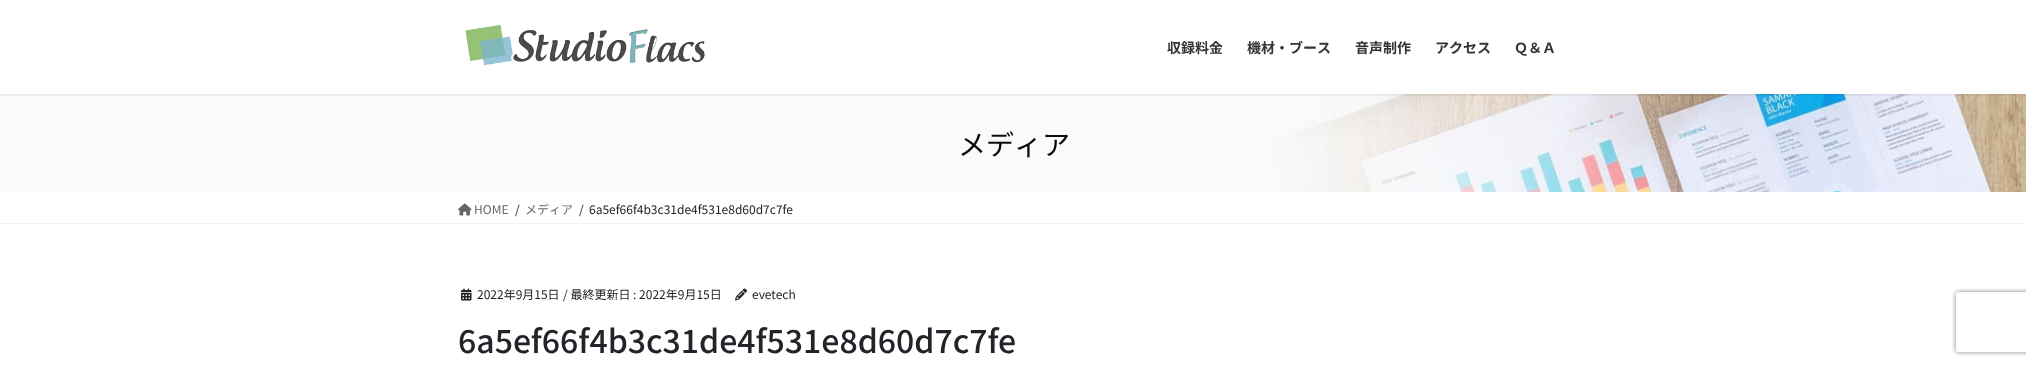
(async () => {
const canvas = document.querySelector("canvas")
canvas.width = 2026
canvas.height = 366
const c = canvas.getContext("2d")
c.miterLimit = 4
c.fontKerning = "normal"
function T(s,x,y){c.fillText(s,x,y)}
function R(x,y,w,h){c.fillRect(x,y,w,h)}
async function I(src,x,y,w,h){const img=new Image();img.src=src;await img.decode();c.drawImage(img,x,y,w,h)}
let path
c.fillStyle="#fff"
R(0,0,2026,366)
await I("2.png",0,94,2026,98)
c.save()
c.beginPath()
c.rect(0,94,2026,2)
c.clip()
c.fillStyle="#0000001a"
c.filter="blur(1.5px)"
c.beginPath()
c.rect(0,1,2026,94)
c.fill()
c.filter="none"
c.restore()
await I("1.png",465,25,240,41)
c.font="bold 14px Noto Sans JP"
c.fillStyle="#333"
T("収録料金",1167,53)
T("機材・ブース",1247,53)
T("音声制作",1355,53)
T("アクセス",1435,53)
T("Ｑ＆Ａ",1514,53)
c.font="28px Noto Sans JP"
c.fillStyle="#0a0a0a"
T("メディア",958,155)
c.fillStyle="#f2f2f2"
R(0,223,2026,1)
await I("3.png",458,203,14,13)
c.font="12px Noto Sans JP"
c.fillStyle="#666"
T("HOME",474,214)
c.fillStyle="#212529"
T("/",515,214)
c.fillStyle="#666"
T("メディア",525,214)
c.fillStyle="#212529"
T("/",579,214)
T("6a5ef66f4b3c31de4f531e8d60d7c7fe",589,214)
await I("4.png",461,288,11,13)
T("2022年9月15日",477,299)
T("/ 最終更新日 : 2022年9月15日",563,299)
await I("5.png",735,288,12,13)
T("evetech",752,299)
c.font="500 32px Noto Sans JP"
T("6a5ef66f4b3c31de4f531e8d60d7c7fe",458,353)
c.save()
path = new Path2D("M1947 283h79v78h-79zm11 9h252c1 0 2 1 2 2v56c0 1-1 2-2 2h-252c-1 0-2-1-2-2v-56c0-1 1-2 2-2z")
c.clip(path,"evenodd")
c.fillStyle="#808080"
c.filter="blur(2.5px)"
c.beginPath()
c.roundRect(1956,292,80,60,2)
c.fill()
c.filter="none"
c.restore()
})()
